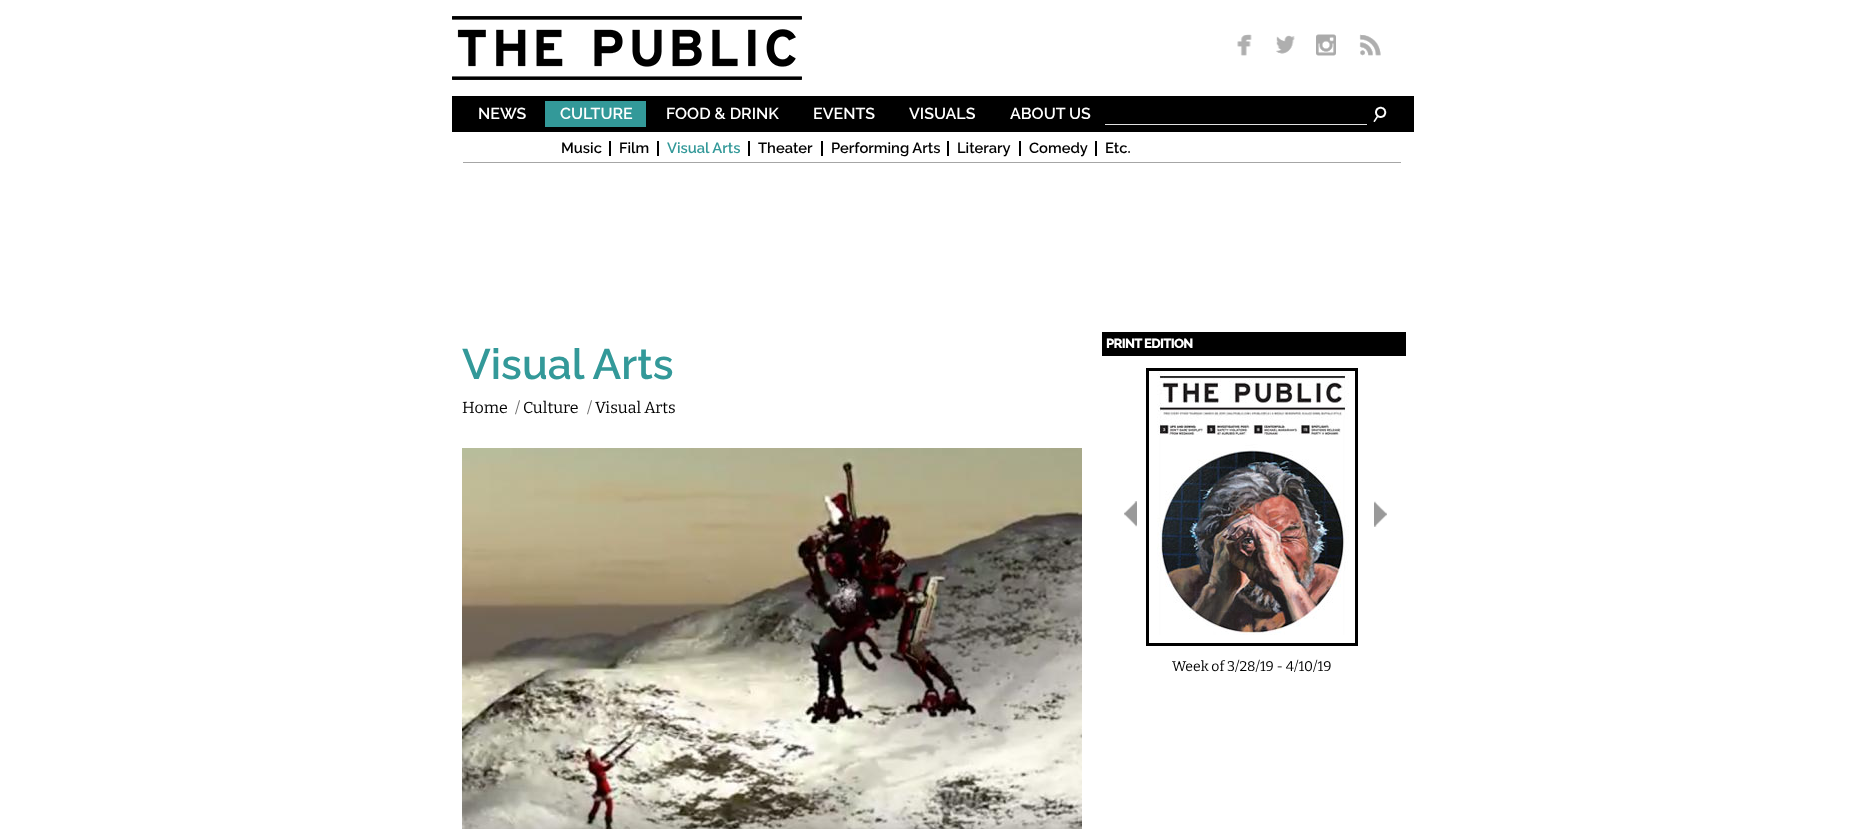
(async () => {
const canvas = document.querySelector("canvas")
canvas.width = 1863
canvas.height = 829
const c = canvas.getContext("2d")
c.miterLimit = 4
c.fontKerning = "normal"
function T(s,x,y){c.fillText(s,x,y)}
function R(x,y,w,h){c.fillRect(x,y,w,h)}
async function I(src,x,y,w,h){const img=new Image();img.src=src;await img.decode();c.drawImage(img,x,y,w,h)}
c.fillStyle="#fff"
R(0,0,1863,829)
await I("1.png",452,16,350,64)
await I("2.png",1237,34,15,22)
await I("3.png",1276,35,19,19)
await I("4.png",1316,34,20,22)
await I("5.png",1359,34,22,22)
c.fillStyle="#000"
R(452,96,962,36)
c.font="600 16px Raleway"
c.fillStyle="#fff"
T("NEWS",478,119)
c.fillStyle="#399"
R(545,101,101,26)
c.fillStyle="#fff"
T("CULTURE",560,119)
c.fillStyle="#000"
R(609,141,2,15)
c.font="600 14.75px Raleway"
T("Music",561,153)
R(657,141,2,15)
T("Film",619,153)
R(748,141,2,15)
c.fillStyle="#399"
T("Visual Arts",667,153)
c.fillStyle="#000"
R(821,141,2,15)
T("Theater",758,153)
R(947,141,2,15)
T("Performing Arts",831,153)
R(1019,141,2,15)
T("Literary",957,153)
R(1095,141,2,15)
T("Comedy",1029,153)
T("Etc.",1105,153)
c.font="600 16px Raleway"
c.fillStyle="#fff"
T("FOOD & DRINK",666,119)
T("EVENTS",813,119)
T("VISUALS",909,119)
T("ABOUT US",1010,119)
await I("6.png",1373,106,14,16)
c.fillStyle="#e1e1e1"
R(1105,124,262,1)
c.fillStyle="#a6a6a6"
R(463,162,938,1)
c.font="600 42.5px Raleway"
c.fillStyle="#399"
T("Visual Arts",462,379)
c.font="100 16px Bitter"
c.fillStyle="#000"
T("Home",462,413)
c.fillStyle="#666"
T("/",515,413)
c.fillStyle="#000"
T("Culture",523,413)
c.fillStyle="#666"
T("/",587,413)
c.fillStyle="#000"
T("Visual Arts",595,413)
await I("7.png",462,448,620,381)
R(1102,332,304,24)
c.letterSpacing="-0.7px"
c.font="800 13.25px Raleway"
c.fillStyle="#fff"
T("PRINT EDITION",1106,348)
await I("8.png",1124,501,13,26)
await I("9.png",1374,501,13,26)
c.strokeStyle="#000"
c.lineWidth=3
c.strokeRect(1147.5,369.5,209,275)
await I("10.png",1157,372,192,263)
c.letterSpacing="0px"
c.font="100 14px Bitter"
c.fillStyle="#000"
T("Week of 3/28/19 - 4/10/19",1172,671)
})()
